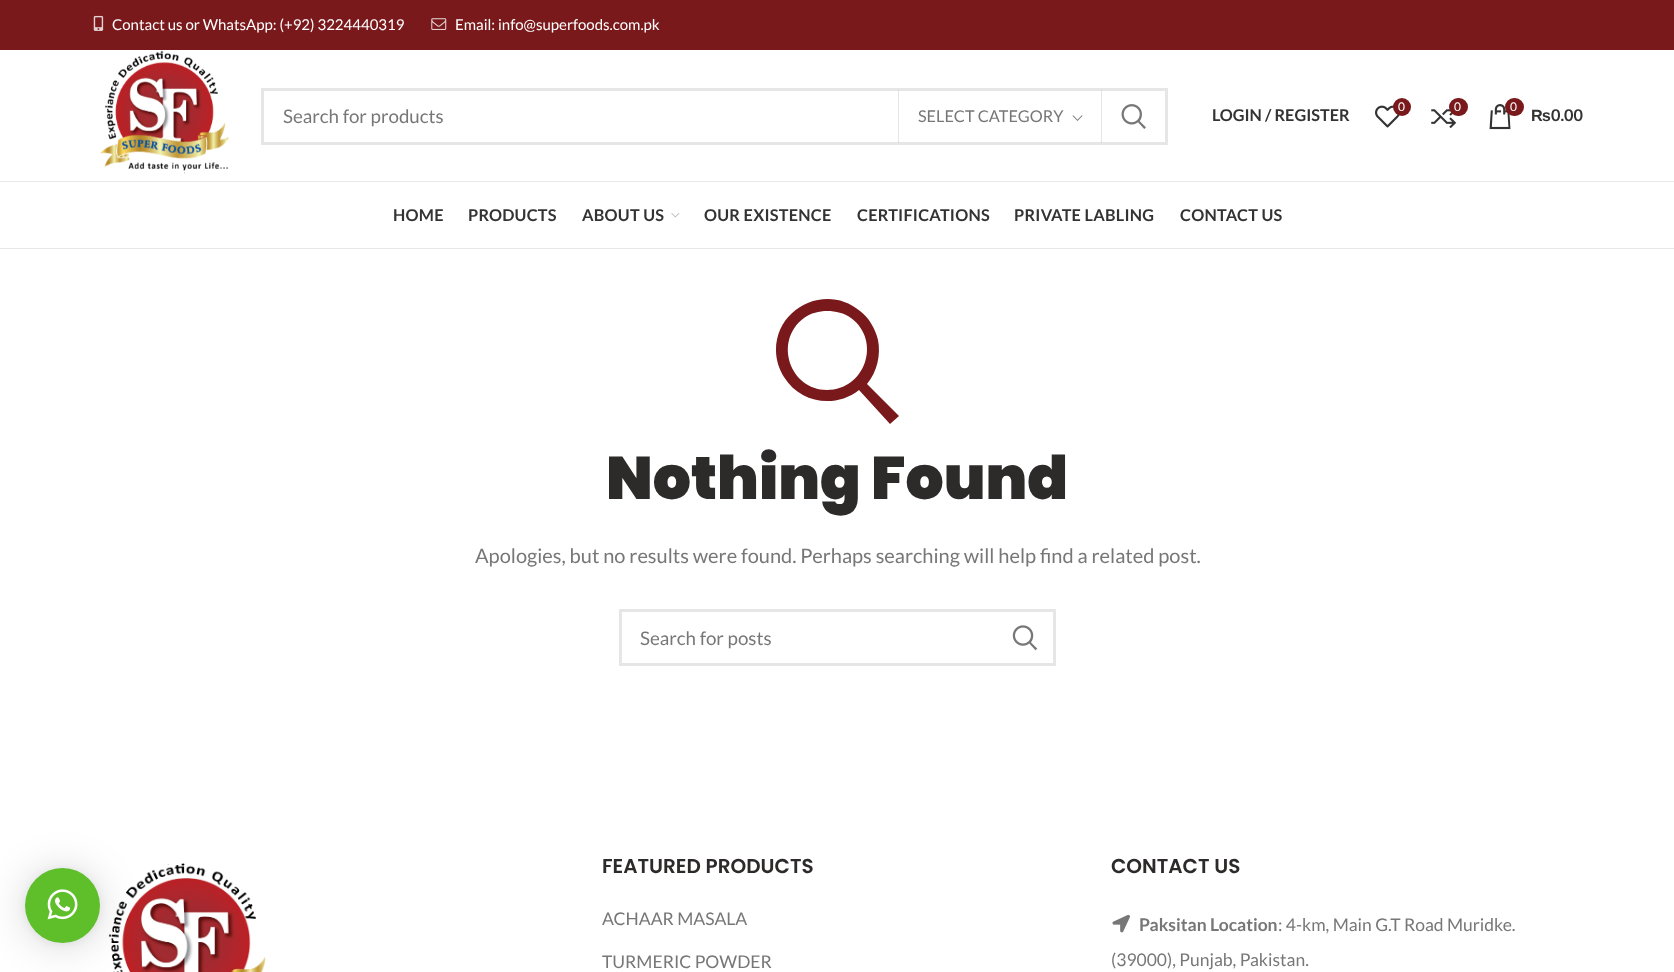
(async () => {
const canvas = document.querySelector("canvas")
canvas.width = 1674
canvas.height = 972
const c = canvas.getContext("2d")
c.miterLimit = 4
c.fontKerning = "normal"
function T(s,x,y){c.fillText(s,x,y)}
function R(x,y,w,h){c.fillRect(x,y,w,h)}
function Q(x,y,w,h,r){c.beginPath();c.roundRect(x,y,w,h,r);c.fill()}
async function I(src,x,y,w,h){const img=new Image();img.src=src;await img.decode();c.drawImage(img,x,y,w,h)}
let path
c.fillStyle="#fff"
R(0,0,1674,972)
await I("12.png",108,863,158,109)
c.fillStyle="#00000029"
c.filter="blur(20px)"
c.beginPath()
c.roundRect(25,870,75,75,37.5)
c.fill()
c.filter="none"
c.fillStyle="#0000000f"
c.filter="blur(4px)"
c.beginPath()
c.roundRect(25,869,75,75,37.5)
c.fill()
c.filter="none"
c.fillStyle="#5fbf2b"
c.beginPath()
c.arc(62.5,905.5,37.5,0,7)
c.fill()
await I("1.png",47,889,31,31)
c.fillStyle="#79191b"
R(0,0,1674,50)
await I("2.png",93,15,11,16)
c.font="15px Lato"
c.fillStyle="#fff"
T("Contact us or WhatsApp: (+92) 3224440319",112,30)
await I("3.png",431,18,16,12)
T("Email: info@superfoods.com.pk",455,30)
c.fillStyle="#e8e8e8"
R(0,181,1674,1)
await I("4.png",100,50,129,124)
c.strokeStyle="#e6e6e6"
c.lineWidth=3
c.strokeRect(262.5,89.5,904,54)
c.font="18.75px Lato"
c.fillStyle="#777"
T("Search for products",283,123)
c.fillStyle="#81818133"
R(1101,90,1,53)
R(898,90,1,53)
c.font="16.25px Lato"
c.fillStyle="#777"
T("SELECT CATEGORY",918,122)
await I("5.png",1072,115,11,6)
await I("6.png",1121,104,25,25)
c.font="bold 16.25px Lato"
c.fillStyle="#333"
T("LOGIN / REGISTER",1212,121)
await I("7.png",1375,105,25,23)
c.fillStyle="#79191b"
c.beginPath()
c.arc(1402,107,9,0,7)
c.fill()
c.font="12px Lato"
c.fillStyle="#fff"
T("0",1398,111)
await I("8.png",1431,105,26,24)
c.fillStyle="#79191b"
Q(1449,98,19,18,9)
c.fillStyle="#fff"
T("0",1454,111)
await I("9.png",1489,104,22,26)
c.fillStyle="#79191b"
Q(1505,98,19,18,9)
c.fillStyle="#fff"
T("0",1510,111)
c.font="bold 16.25px Liberation Sans"
c.fillStyle="#333"
T("₨",1531,121)
c.font="bold 16.25px Lato"
T("0.00",1551,121)
c.fillStyle="#e8e8e8"
R(0,248,1674,1)
c.letterSpacing="0.25px"
c.fillStyle="#333"
T("HOME",393,221)
T("PRODUCTS",468,221)
T("ABOUT US",582,221)
await I("10.png",671,213,9,5)
T("OUR EXISTENCE",704,221)
T("CERTIFICATIONS",857,221)
T("PRIVATE LABLING",1014,221)
T("CONTACT US",1180,221)
c.fillStyle="#79191b"
path = new Path2D("M867 384l32 32l-9 8l-31-34c-24 19-59 13-75-13c-5-8-8-17-8-27c0-43 51-67 84-39c9 7 15 17 18 29c3 15-1 32-11 44zm-40 6c38 0 55-49 24-72c-7-5-15-7-24-7c-8 0-16 2-23 7c-31 23-14 72 23 72z")
c.fill(path)
c.letterSpacing="0px"
c.font="900 60px Poppins"
c.fillStyle="#2d2a2a"
T("Nothing Found",606,499)
c.font="20px Lato"
c.fillStyle="#777"
T("Apologies, but no results were found. Perhaps searching will help find a related post.",475,563)
c.strokeRect(620.5,610.5,434,54)
c.font="18.75px Lato"
T("Search for posts",640,645)
await I("11.png",1012,625,26,26)
c.font="600 20px Poppins"
c.fillStyle="#2d2a2a"
T("FEATURED PRODUCTS",602,873)
c.font="17.5px Lato"
c.fillStyle="#777"
T("ACHAAR MASALA",602,925)
T("TURMERIC POWDER",602,968)
c.font="600 20px Poppins"
c.fillStyle="#2d2a2a"
T("CONTACT US",1111,873)
await I("13.png",1112,914,18,19)
c.font="bold 17.5px Lato"
c.fillStyle="#777"
T("Paksitan Location",1139,931)
c.font="17.5px Lato"
T(": 4-km, Main G.T Road Muridke.",1278,931)
T("(39000), Punjab, Pakistan.",1111,966)
})()
